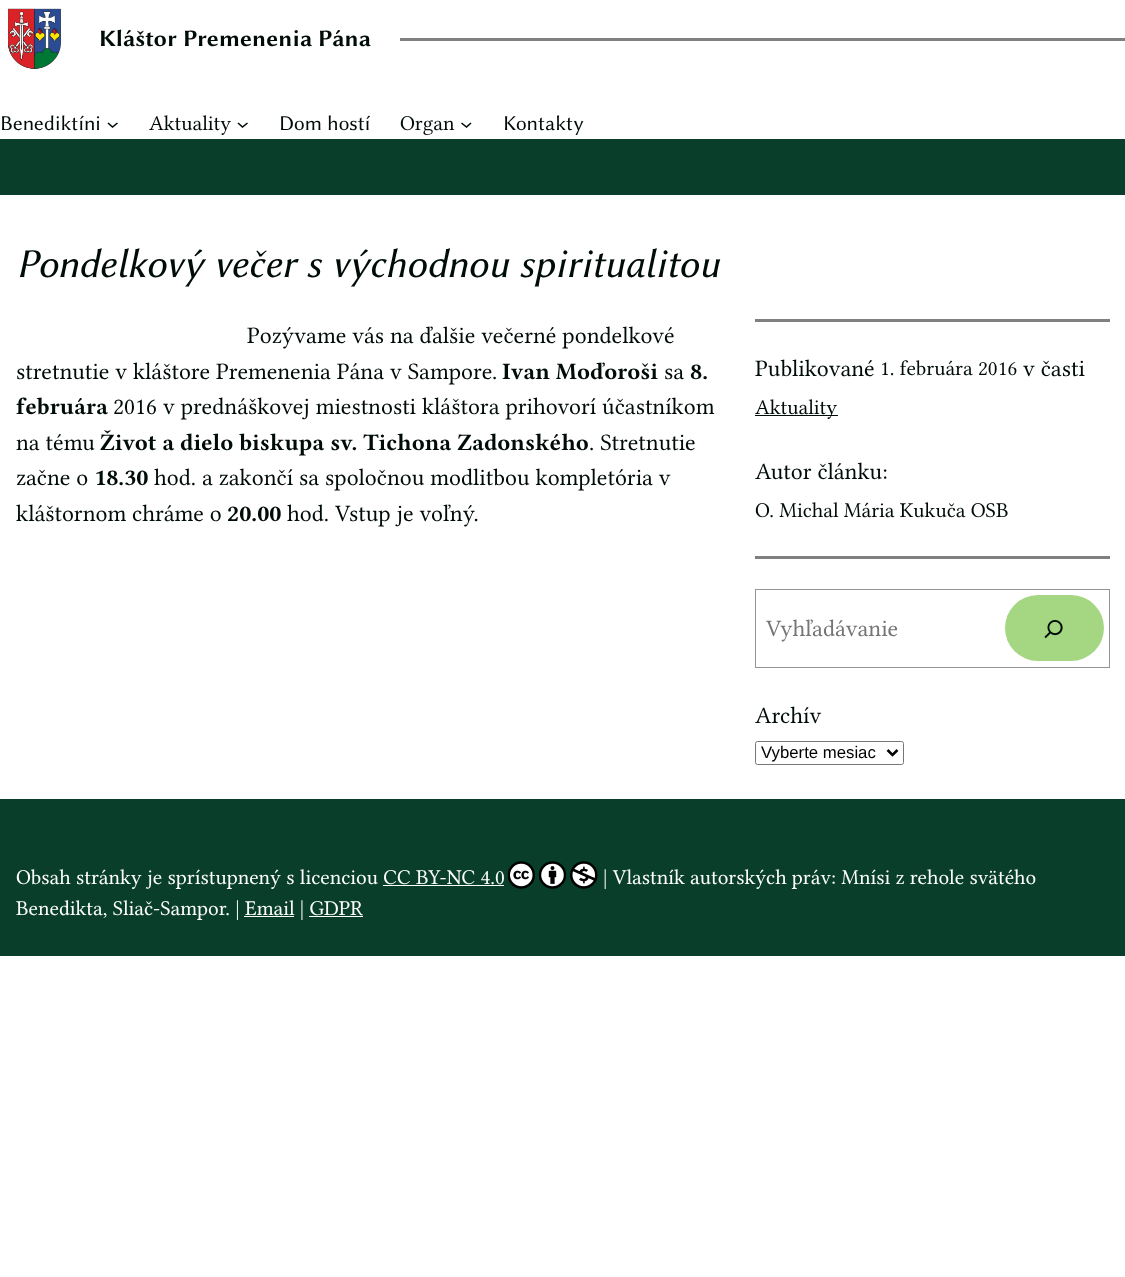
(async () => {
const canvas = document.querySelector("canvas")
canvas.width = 1125
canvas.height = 1277
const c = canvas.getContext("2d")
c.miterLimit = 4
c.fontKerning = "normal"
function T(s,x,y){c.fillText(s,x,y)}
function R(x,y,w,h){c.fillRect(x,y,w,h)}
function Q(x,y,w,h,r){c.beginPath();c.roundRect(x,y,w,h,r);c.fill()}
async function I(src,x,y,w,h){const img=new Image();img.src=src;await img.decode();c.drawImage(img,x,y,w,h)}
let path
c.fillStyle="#fff"
R(0,0,1125,1277)
await I("1.png",8,8,53,61)
c.font="bold 23.7px Libertinus Sans"
c.fillStyle="#000c08"
T("Kláštor Premenenia Pána",99,46)
c.fillStyle="#808080"
R(400,38,725,3)
c.font="21.2px Libertinus Sans"
c.fillStyle="#000c08"
T("Benediktíni",0,130)
path = new Path2D("M108 123l4.5 4l5-4")
c.strokeStyle="#000c08"
c.lineWidth=1.6
c.stroke(path)
c.font="21.2px Libertinus Serif"
T("Aktuality",149,130)
path = new Path2D("M238 123l4.5 4l5-4")
c.stroke(path)
c.font="21.2px Libertinus Sans"
T("Dom hostí",279,130)
c.font="21.2px Libertinus Serif"
T("Organ",400,130)
path = new Path2D("M461.5 123l5 4l4.5-4")
c.stroke(path)
c.font="21.2px Libertinus Sans"
T("Kontakty",503,130)
c.fillStyle="#083e2a"
R(0,139,1125,56)
c.font="italic 41.1px Libertinus Sans"
c.fillStyle="#000c08"
T("Pondelkový večer s východnou spiritualitou",16,277)
c.font="23.7px Libertinus Serif"
T("Pozývame vás na ďalšie večerné pondelkové",247,343)
T("stretnutie v kláštore Premenenia Pána v Sampore.",16,379)
c.font="bold 23.7px Libertinus Serif"
T("Ivan Moďoroši",502,379)
c.font="23.7px Libertinus Serif"
T("sa",664,379)
c.font="bold 23.7px Libertinus Serif"
T("8.",690,379)
T("februára",16,414)
c.font="23.7px Libertinus Serif"
T("2016 v prednáškovej miestnosti kláštora prihovorí účastníkom",113,414)
T("na tému",16,450)
c.font="bold 23.7px Libertinus Serif"
T("Život a dielo biskupa sv. Tichona Zadonského",100,450)
c.font="23.7px Libertinus Serif"
T(". Stretnutie",589,450)
T("začne o",16,485)
c.font="bold 23.7px Libertinus Serif"
T("18.30",94,485)
c.font="23.7px Libertinus Serif"
T("hod. a zakončí sa spoločnou modlitbou kompletória v",154,485)
T("kláštornom chráme o",16,521)
c.font="bold 23.7px Libertinus Serif"
T("20.00",227,521)
c.font="23.7px Libertinus Serif"
T("hod. Vstup je voľný.",287,521)
c.fillStyle="#808080"
R(755,319,355,3)
c.fillStyle="#000c08"
T("Publikované",755,376)
c.font="21.2px Libertinus Serif"
T("1. februára 2016",880,375)
c.font="23.7px Libertinus Serif"
T("v časti",1023,376)
R(755,415,83,1)
c.font="21.2px Libertinus Serif"
T("Aktuality",755,414)
c.font="23.7px Libertinus Serif"
T("Autor článku:",755,479)
c.font="21.2px Libertinus Serif"
T("O. Michal Mária Kukuča OSB",755,517)
c.fillStyle="#808080"
R(755,556,355,3)
c.strokeStyle="#949494"
c.lineWidth=1
c.strokeRect(755.5,589.5,354,78)
c.font="23.7px Libertinus Serif"
c.fillStyle="#757575"
T("Vyhľadávanie",766,636)
c.fillStyle="#a5d782"
Q(1005,595,99,66,33)
await I("2.png",1044,620,19,19)
c.fillStyle="#000c08"
T("Archív",755,723)
c.beginPath()
c.roundRect(755.5,741.5,148,23,2)
c.strokeStyle="#767676"
c.stroke()
path = new Path2D("M887.5 750l5 5l5-5")
c.strokeStyle="#000"
c.lineWidth=2.5
c.stroke(path)
c.font="16.75px Liberation Sans"
c.fillStyle="#000"
T("Vyberte mesiac",761,758)
c.fillStyle="#083e2a"
R(0,799,1125,157)
c.fillStyle="#fff"
R(383,885,121,1)
await I("3.png",508,861,27,28)
await I("4.png",539,861,27,28)
await I("5.png",570,861,28,28)
c.font="21.2px Libertinus Serif"
T("Obsah stránky je sprístupnený s licenciou CC BY-NC 4.0",16,884)
T("| Vlastník autorských práv: Mnísi z rehole svätého",603,884)
T("Benedikta, Sliač-Sampor. | Email | GDPR",16,915)
R(244,916,50,1)
R(309,916,54,1)
})()
